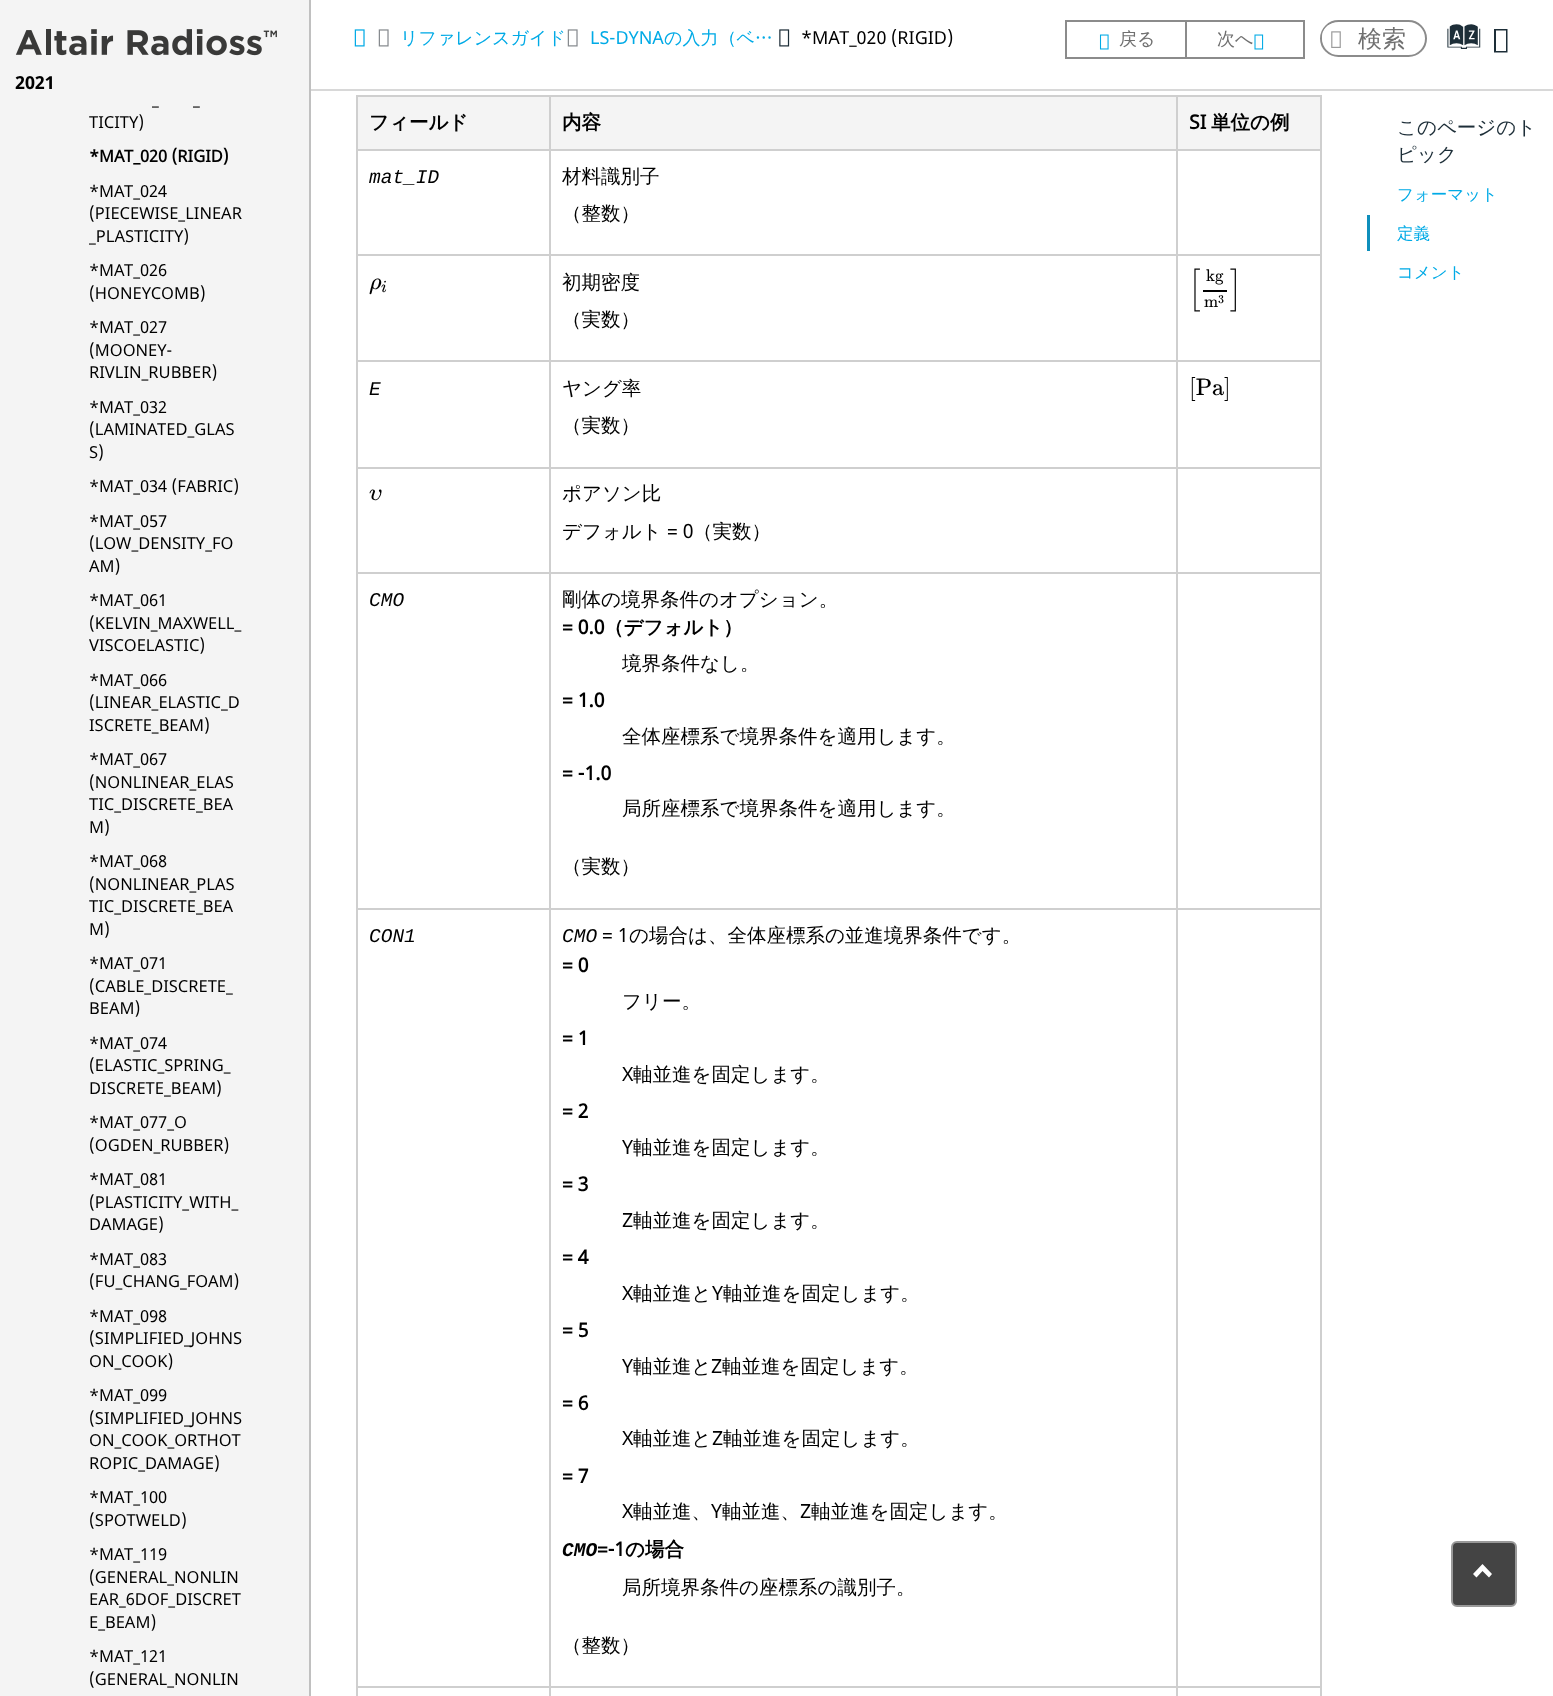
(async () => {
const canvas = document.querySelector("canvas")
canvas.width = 1553
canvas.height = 1696
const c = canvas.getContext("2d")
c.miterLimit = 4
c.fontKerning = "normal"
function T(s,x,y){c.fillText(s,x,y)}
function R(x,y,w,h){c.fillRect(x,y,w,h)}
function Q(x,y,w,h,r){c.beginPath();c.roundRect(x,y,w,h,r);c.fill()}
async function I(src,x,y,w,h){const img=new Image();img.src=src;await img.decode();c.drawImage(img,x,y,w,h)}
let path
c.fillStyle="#fff"
R(0,0,1553,1696)
c.fillStyle="#f4f4f4"
R(0,0,309,1696)
c.fillStyle="#c0c0c0"
R(309,0,2,1696)
await I("1.png",15,29,262,27)
c.font="bold 18px 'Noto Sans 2'"
c.fillStyle="#000"
T("2021",15,89)
c.font="16.5px Noto Sans"
T("_",152,105)
T("_",193,105)
T("TICITY)",89,128)
c.font="bold 16.5px Noto Sans"
T("*MAT_020 (RIGID)",89,162)
c.font="16.5px Noto Sans"
T("*MAT_024",89,197)
T("(PIECEWISE_LINEAR",89,219)
T("_PLASTICITY)",89,242)
T("*MAT_026",89,276)
T("(HONEYCOMB)",89,299)
T("*MAT_027",89,333)
T("(MOONEY-",89,356)
T("RIVLIN_RUBBER)",89,378)
T("*MAT_032",89,413)
T("(LAMINATED_GLAS",89,435)
T("S)",89,458)
T("*MAT_034 (FABRIC)",89,492)
T("*MAT_057",89,527)
T("(LOW_DENSITY_FO",89,549)
T("AM)",89,572)
T("*MAT_061",89,606)
T("(KELVIN_MAXWELL_",89,629)
T("VISCOELASTIC)",89,651)
T("*MAT_066",89,686)
T("(LINEAR_ELASTIC_D",89,708)
T("ISCRETE_BEAM)",89,731)
T("*MAT_067",89,765)
T("(NONLINEAR_ELAS",89,788)
T("TIC_DISCRETE_BEA",89,810)
T("M)",89,833)
T("*MAT_068",89,867)
T("(NONLINEAR_PLAS",89,890)
T("TIC_DISCRETE_BEA",89,912)
T("M)",89,935)
T("*MAT_071",89,969)
T("(CABLE_DISCRETE_",89,992)
T("BEAM)",89,1014)
T("*MAT_074",89,1049)
T("(ELASTIC_SPRING_",89,1071)
T("DISCRETE_BEAM)",89,1094)
T("*MAT_077_O",89,1128)
T("(OGDEN_RUBBER)",89,1151)
T("*MAT_081",89,1185)
T("(PLASTICITY_WITH_",89,1208)
T("DAMAGE)",89,1230)
T("*MAT_083",89,1265)
T("(FU_CHANG_FOAM)",89,1287)
T("*MAT_098",89,1322)
T("(SIMPLIFIED_JOHNS",89,1344)
T("ON_COOK)",89,1367)
T("*MAT_099",89,1401)
T("(SIMPLIFIED_JOHNS",89,1424)
T("ON_COOK_ORTHOT",89,1446)
T("ROPIC_DAMAGE)",89,1469)
T("*MAT_100",89,1503)
T("(SPOTWELD)",89,1526)
T("*MAT_119",89,1560)
T("(GENERAL_NONLIN",89,1583)
T("EAR_6DOF_DISCRET",89,1605)
T("E_BEAM)",89,1628)
T("*MAT_121",89,1662)
T("(GENERAL_NONLIN",89,1685)
c.fillStyle="#d8d8d8"
R(311,89,1242,2)
await I("2.png",354,29,11,18)
await I("3.png",378,29,11,18)
c.font="500 18px WenQuanYi Zen Hei"
c.fillStyle="#00aae6"
T("リファレンスガイド",400,44)
await I("3.png",567,29,11,18)
c.font="18px Noto Sans"
T("LS-DYNA",590,44)
c.font="500 18px WenQuanYi Zen Hei"
T("の入力（ベ…",664,44)
await I("4.png",779,29,11,18)
c.font="18px Noto Sans"
c.fillStyle="#000"
T("*MAT_020 (RIGID)",801,44)
c.fillStyle="#8b8b8b"
R(1065,20,120,2)
R(1065,57,120,2)
R(1065,20,2,39)
await I("5.png",1099,34,10,16)
c.font="500 18px WenQuanYi Zen Hei"
c.fillStyle="#707070"
T("戻る",1119,45)
c.strokeStyle="#8b8b8b"
c.lineWidth=2
c.strokeRect(1186,21,118,37)
T("次へ",1217,45)
await I("6.png",1254,34,10,16)
c.beginPath()
c.roundRect(1321,21,105,35,17.5)
c.stroke()
c.fillStyle="#fff"
Q(1322,23,30,28,14)
await I("7.png",1331,31,10,17)
c.font="500 24px WenQuanYi Zen Hei"
c.fillStyle="#707070"
T("検索",1358,47)
c.font="35px Oxygen"
c.fillStyle="#1d2e38"
T("a",1451,53)
path = new Path2D("M1494 52.5v-23.5h13.5v23.5zm2-1.5h10v-20.5h-10z")
c.fill(path)
c.fillStyle="#cfcfcf"
R(356,95,966,2)
R(1320,95,2,1601)
R(356,95,2,1601)
c.fillStyle="#f4f4f4"
R(358,97,191,52)
c.font="bold 19.5px WenQuanYi Zen Hei"
c.fillStyle="#000"
T("フィールド",369,129)
c.fillStyle="#f4f4f4"
R(551,97,625,52)
c.fillStyle="#cfcfcf"
R(1176,149,146,2)
R(1176,254,146,2)
R(1176,360,146,2)
R(1176,467,146,2)
R(1176,572,146,2)
R(1176,908,146,2)
R(1176,1686,146,2)
R(1176,1686,2,10)
R(549,1686,629,2)
R(1176,908,2,780)
R(549,908,629,2)
R(1176,572,2,337)
R(549,572,629,2)
R(1176,467,2,106)
R(549,467,629,2)
R(1176,360,2,108)
R(549,360,629,2)
R(1176,254,2,108)
R(549,254,629,2)
R(1176,149,2,106)
R(549,149,629,2)
R(549,1686,2,10)
R(356,1686,195,2)
R(549,908,2,780)
R(356,908,195,2)
R(549,572,2,337)
R(356,572,195,2)
R(549,467,2,106)
R(356,467,195,2)
R(549,360,2,108)
R(356,360,195,2)
R(549,254,2,108)
R(356,254,195,2)
R(549,149,2,106)
R(356,149,195,2)
R(549,95,2,55)
c.fillStyle="#000"
T("内容",562,129)
c.fillStyle="#f4f4f4"
R(1178,97,142,52)
c.fillStyle="#cfcfcf"
R(1176,95,2,55)
c.font="bold 19.5px Noto Sans"
c.fillStyle="#000"
T("SI",1189,129)
c.font="bold 19.5px WenQuanYi Zen Hei"
T("単位の例",1211,129)
c.font="italic 19.5px Liberation Mono"
T("mat_ID",369,183)
c.font="500 19.5px WenQuanYi Zen Hei"
T("材料識別子",562,183)
T("（整数）",562,220)
c.font="italic 24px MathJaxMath"
T("ρ",369,289)
c.font="italic 17px MathJaxMath"
T("i",381,292)
c.font="500 19.5px WenQuanYi Zen Hei"
T("初期密度",562,289)
T("（実数）",562,326)
c.font="24px 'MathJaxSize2'"
T("[",1189,296)
c.font="17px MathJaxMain"
T("kg",1206,281)
R(1203,290,24,2)
T("m",1204,307)
c.font="12px MathJaxMain"
T("3",1218,303)
c.font="24px 'MathJaxSize2'"
T("]",1230,296)
c.font="italic 19.5px Liberation Mono"
T("E",369,395)
c.font="500 19.5px WenQuanYi Zen Hei"
T("ヤング率",562,395)
T("（実数）",562,432)
c.font="24px MathJaxMain"
T("[Pa]",1189,395)
c.font="italic 24px MathJaxMath"
T("υ",369,500)
c.font="500 19.5px WenQuanYi Zen Hei"
T("ポアソン比",562,500)
T("デフォルト",562,538)
c.font="19.5px Noto Sans"
T("= 0",667,538)
c.font="500 19.5px WenQuanYi Zen Hei"
T("（実数）",693,538)
c.font="italic 19.5px Liberation Mono"
T("CMO",369,606)
c.font="500 19.5px WenQuanYi Zen Hei"
T("剛体の境界条件のオプション。",562,606)
c.font="bold 19.5px Noto Sans"
T("= 0.0",562,634)
c.font="bold 19.5px WenQuanYi Zen Hei"
T("（デフォルト）",604,634)
c.font="500 19.5px WenQuanYi Zen Hei"
T("境界条件なし。",622,670)
c.font="bold 19.5px Noto Sans"
T("= 1.0",562,707)
c.font="500 19.5px WenQuanYi Zen Hei"
T("全体座標系で境界条件を適用します。",622,743)
c.font="bold 19.5px Noto Sans"
T("= -1.0",562,780)
c.font="500 19.5px WenQuanYi Zen Hei"
T("局所座標系で境界条件を適用します。",622,815)
T("（実数）",562,873)
c.font="italic 19.5px Liberation Mono"
T("CON1",369,942)
T("CMO",562,942)
c.font="19.5px Noto Sans"
T("= 1",602,942)
c.font="500 19.5px WenQuanYi Zen Hei"
T("の場合は、全体座標系の並進境界条件です。",629,942)
c.font="bold 19.5px Noto Sans"
T("= 0",562,972)
c.font="500 19.5px WenQuanYi Zen Hei"
T("フリー。",622,1008)
c.font="bold 19.5px Noto Sans"
T("= 1",562,1045)
c.font="19.5px Noto Sans"
T("X",622,1081)
c.font="500 19.5px WenQuanYi Zen Hei"
T("軸並進を固定します。",633,1081)
c.font="bold 19.5px Noto Sans"
T("= 2",562,1118)
c.font="19.5px Noto Sans"
T("Y",622,1154)
c.font="500 19.5px WenQuanYi Zen Hei"
T("軸並進を固定します。",633,1154)
c.font="bold 19.5px Noto Sans"
T("= 3",562,1191)
c.font="19.5px Noto Sans"
T("Z",622,1227)
c.font="500 19.5px WenQuanYi Zen Hei"
T("軸並進を固定します。",633,1227)
c.font="bold 19.5px Noto Sans"
T("= 4",562,1264)
c.font="19.5px Noto Sans"
T("X",622,1300)
c.font="500 19.5px WenQuanYi Zen Hei"
T("軸並進と",633,1300)
c.font="19.5px Noto Sans"
T("Y",712,1300)
c.font="500 19.5px WenQuanYi Zen Hei"
T("軸並進を固定します。",723,1300)
c.font="bold 19.5px Noto Sans"
T("= 5",562,1337)
c.font="19.5px Noto Sans"
T("Y",622,1373)
c.font="500 19.5px WenQuanYi Zen Hei"
T("軸並進と",633,1373)
c.font="19.5px Noto Sans"
T("Z",711,1373)
c.font="500 19.5px WenQuanYi Zen Hei"
T("軸並進を固定します。",722,1373)
c.font="bold 19.5px Noto Sans"
T("= 6",562,1410)
c.font="19.5px Noto Sans"
T("X",622,1445)
c.font="500 19.5px WenQuanYi Zen Hei"
T("軸並進と",633,1445)
c.font="19.5px Noto Sans"
T("Z",712,1445)
c.font="500 19.5px WenQuanYi Zen Hei"
T("軸並進を固定します。",723,1445)
c.font="bold 19.5px Noto Sans"
T("= 7",562,1483)
c.font="19.5px Noto Sans"
T("X",622,1518)
c.font="500 19.5px WenQuanYi Zen Hei"
T("軸並進、",633,1518)
c.font="19.5px Noto Sans"
T("Y",711,1518)
c.font="500 19.5px WenQuanYi Zen Hei"
T("軸並進、",722,1518)
c.font="19.5px Noto Sans"
T("Z",800,1518)
c.font="500 19.5px WenQuanYi Zen Hei"
T("軸並進を固定します。",811,1518)
c.font="italic bold 19.5px Liberation Mono"
T("CMO",562,1556)
c.font="bold 19.5px Noto Sans"
T("=-1",597,1556)
c.font="bold 19.5px WenQuanYi Zen Hei"
T("の場合",625,1556)
c.font="500 19.5px WenQuanYi Zen Hei"
T("局所境界条件の座標系の識別子。",622,1594)
T("（整数）",562,1652)
c.fillStyle="#1d2e38"
T("このページのト",1397,134)
T("ピック",1397,161)
c.font="500 16.5px WenQuanYi Zen Hei"
c.fillStyle="#00aae6"
T("フォーマット",1397,200)
c.fillStyle="#0e8fbc"
R(1367,215,3,36)
c.fillStyle="#00aae6"
T("定義",1397,239)
T("コメント",1397,278)
c.fillStyle="#444"
c.beginPath()
c.roundRect(1452,1542,64,64,5)
c.fill()
c.strokeStyle="#999"
c.stroke()
c.fillStyle="#fff"
path = new Path2D("M1492 1574l-3 3.5l-6.5-6.5l-6 6.5l-3.5-3.5l9.5-10z")
c.fill(path)
})()
